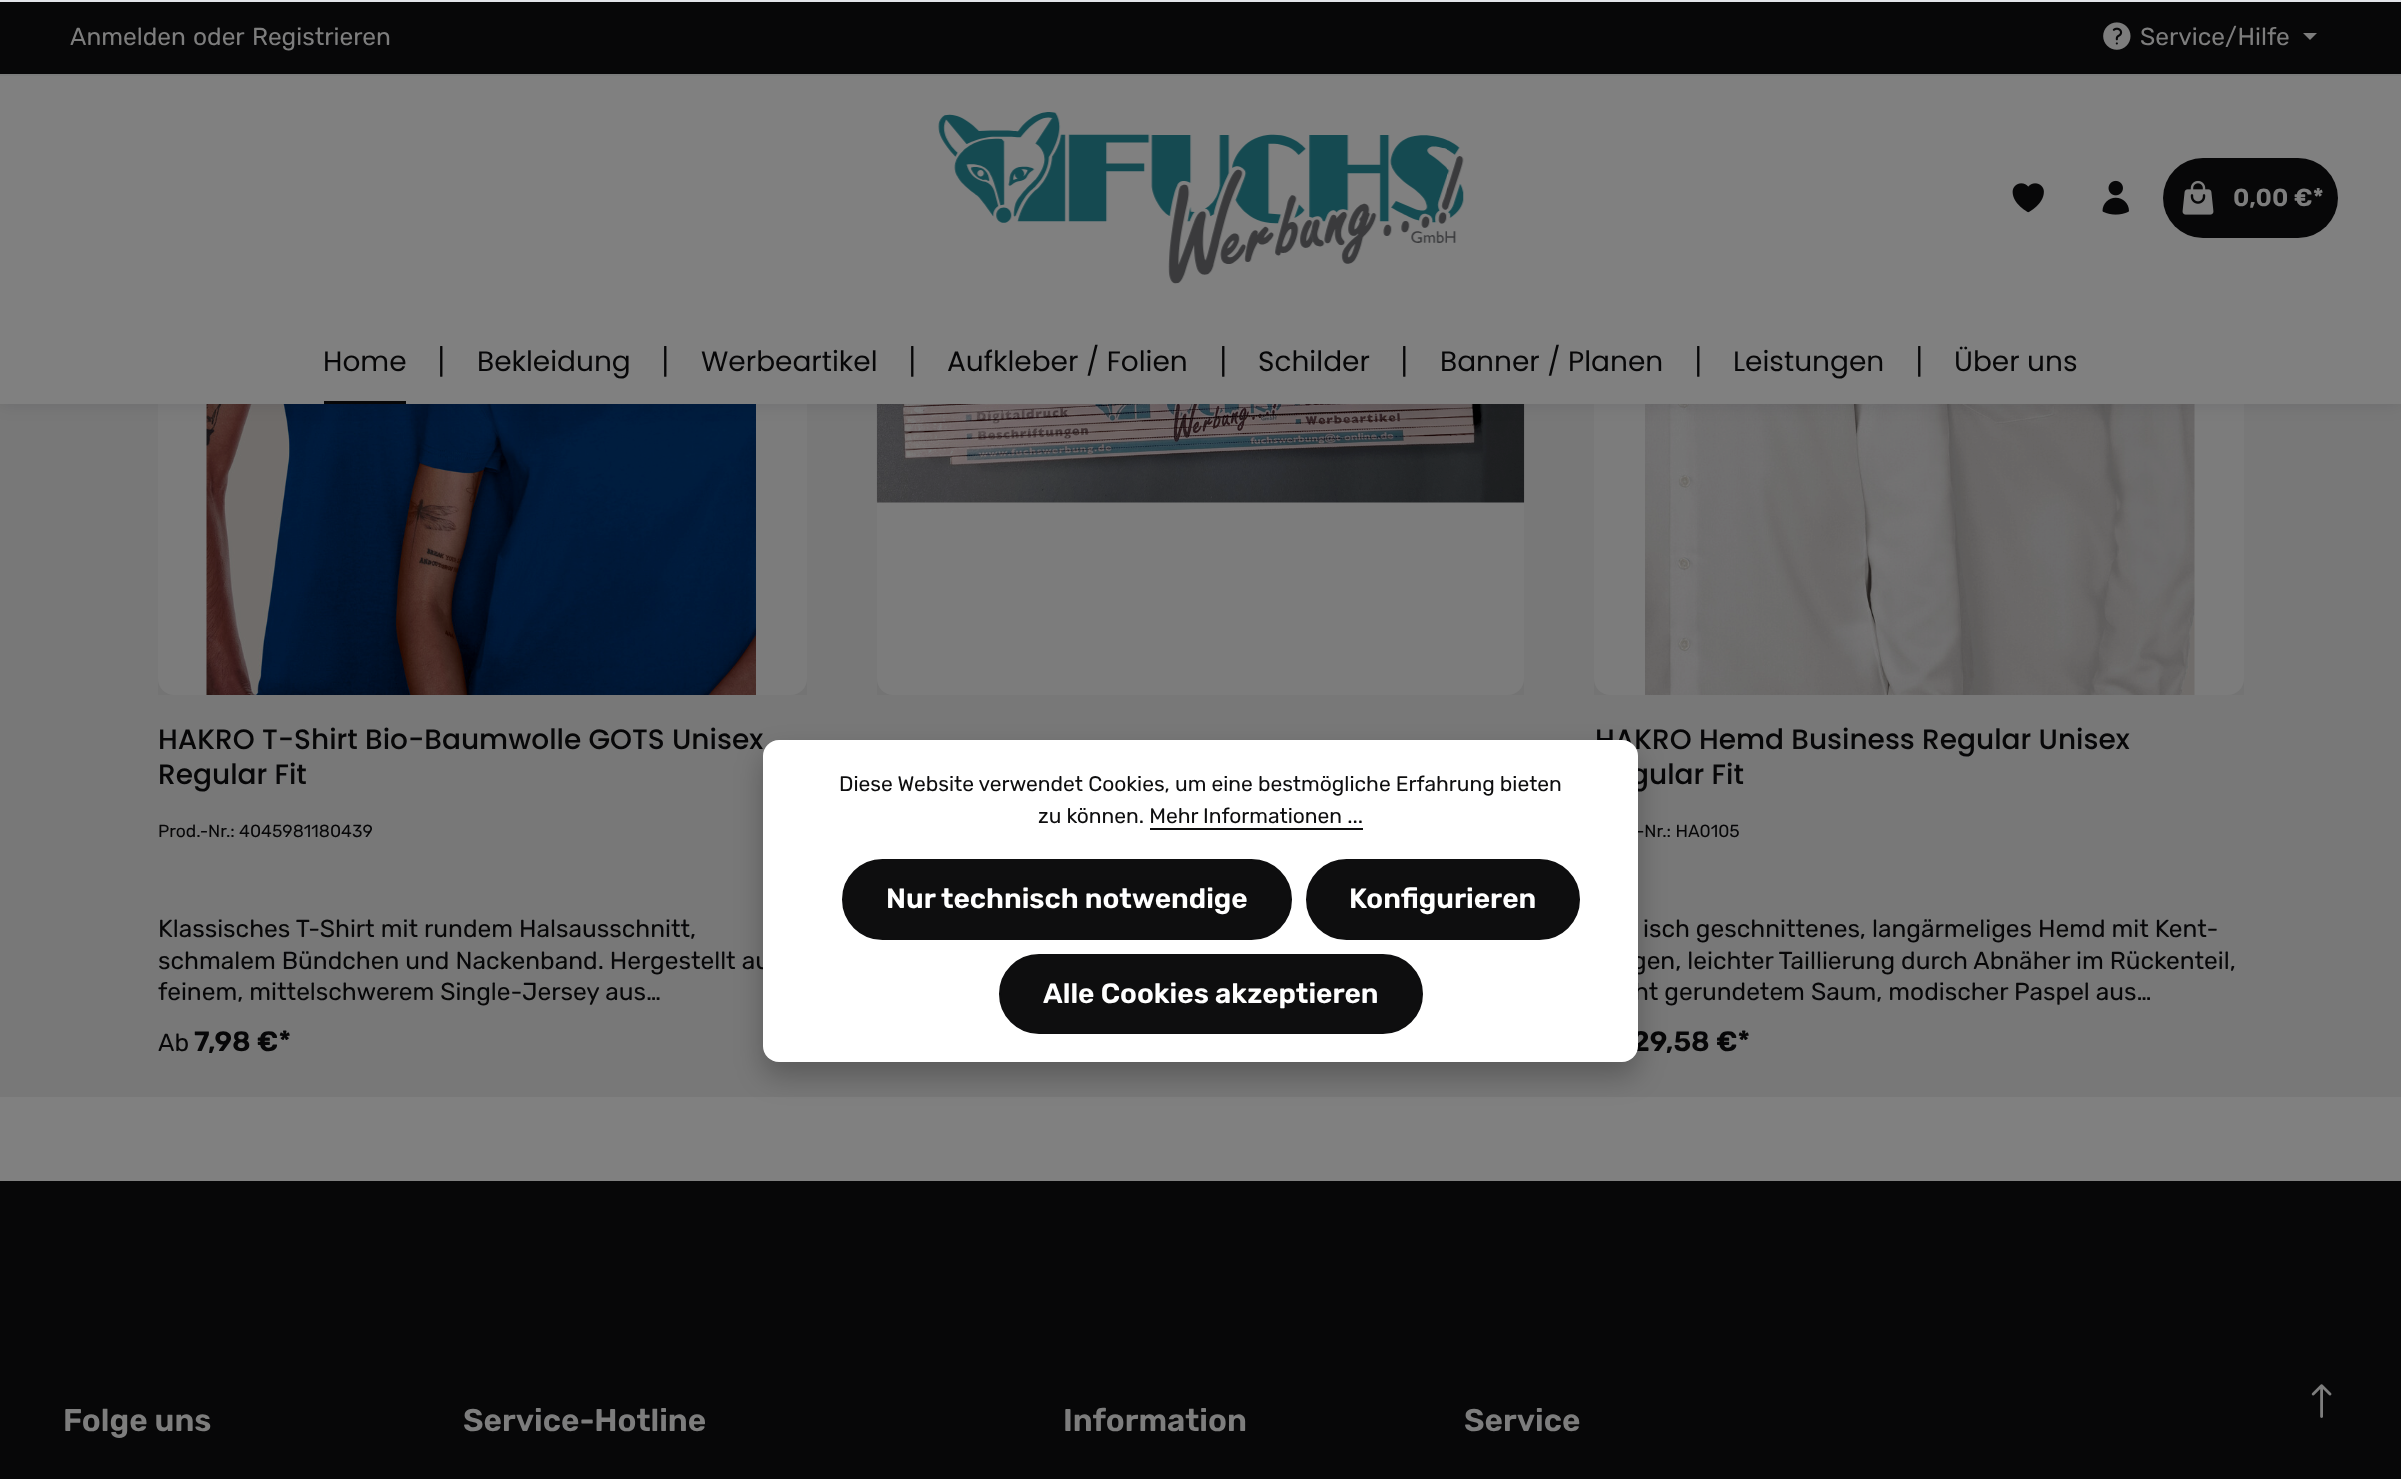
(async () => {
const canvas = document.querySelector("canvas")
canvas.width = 2401
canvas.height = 1479
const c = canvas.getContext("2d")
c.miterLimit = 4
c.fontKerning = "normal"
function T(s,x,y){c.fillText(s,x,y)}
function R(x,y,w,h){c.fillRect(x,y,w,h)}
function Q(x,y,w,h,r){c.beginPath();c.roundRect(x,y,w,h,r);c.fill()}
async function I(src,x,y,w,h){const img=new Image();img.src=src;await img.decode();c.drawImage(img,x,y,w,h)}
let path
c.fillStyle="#808080"
R(0,0,2401,1479)
c.fillStyle="#787878"
R(0,404,2401,693)
c.fillStyle="#808080"
Q(877,-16,647,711,16)
await I("6.png",876,404,649,99)
c.fillStyle="#07070808"
R(877,404,647,291)
c.fillStyle="#808080"
Q(158,-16,649,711,16)
await I("7.png",206,404,550,291)
c.fillStyle="#07070808"
R(158,404,649,291)
c.fillStyle="#808080"
Q(1594,-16,650,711,16)
await I("8.png",1645,404,550,291)
c.fillStyle="#07070808"
R(1594,404,650,291)
c.fillStyle="#0b0c0f1a"
c.filter="blur(9px)"
c.beginPath()
c.rect(0,0,2401,404)
c.fill()
c.filter="none"
c.fillStyle="#070708"
R(0,2,2401,72)
c.fillStyle="#7b7c7c"
R(0,74,2401,2)
c.font="300 24.5px Rubik"
c.fillStyle="#7d7d7d"
T("Anmelden",70,45)
T("oder",193,45)
T("Registrieren",252,45)
await I("1.png",2103,22,28,28)
T("Service/Hilfe",2140,45)
path = new Path2D("M2303 33h14l-7 7z")
c.fill(path)
c.fillStyle="#808080"
R(0,76,2401,328)
await I("2.png",938,112,526,172)
await I("3.png",2012,183,32,30)
await I("4.png",2102,180,27,35)
c.fillStyle="#070708"
Q(2163,158,175,80,40)
await I("5.png",2182,180,32,35)
c.font="600 24.5px Rubik"
c.fillStyle="#7d7d7d"
T("0,00 €*",2233,206)
c.font="28px Poppins"
c.fillStyle="#070708"
T("Home",323,371)
R(324,401,82,3)
c.font="300 28px Rubik"
T("|",438,371)
c.font="28px Poppins"
T("Bekleidung",477,371)
c.font="300 28px Rubik"
T("|",662,371)
c.font="28px Poppins"
T("Werbeartikel",701,371)
c.font="300 28px Rubik"
T("|",909,371)
c.font="28px Poppins"
T("Aufkleber / Folien",947,371)
c.font="300 28px Rubik"
T("|",1220,371)
c.font="28px Poppins"
T("Schilder",1258,371)
c.font="300 28px Rubik"
T("|",1401,371)
c.font="28px Poppins"
T("Banner / Planen",1440,371)
c.font="300 28px Rubik"
T("|",1695,371)
c.font="28px Poppins"
T("Leistungen",1733,371)
c.font="300 28px Rubik"
T("|",1916,371)
c.font="28px Poppins"
T("Über uns",1954,371)
c.font="500 28px Poppins"
T("HAKRO T-Shirt Bio-Baumwolle GOTS Unisex",158,749)
T("Regular Fit",158,784)
c.font="300 17.5px Rubik"
T("Prod.-Nr.: 4045981180439",158,837)
c.font="300 24.5px Rubik"
T("Klassisches T-Shirt mit rundem Halsausschnitt,",158,937)
T("schmalem Bündchen und Nackenband. Hergestellt au",158,969)
T("feinem, mittelschwerem Single-Jersey aus…",158,1000)
T("Ab",158,1051)
c.font="600 28px Rubik"
T("7,98 €*",194,1051)
c.font="500 28px Poppins"
T("HAKRO Hemd Business Regular Unisex",1595,749)
T("gular Fit",1630,784)
c.font="300 17.5px Rubik"
T("-Nr.: HA0105",1636,837)
c.font="300 24.5px Rubik"
T("isch geschnittenes, langärmeliges Hemd mit Kent-",1643,937)
T("gen, leichter Taillierung durch Abnäher im Rückenteil,",1632,969)
T("ht gerundetem Saum, modischer Paspel aus…",1634,1000)
c.font="600 28px Rubik"
T("29,58 €*",1632,1051)
R(0,1181,2401,298)
c.font="600 31.5px Rubik"
c.fillStyle="#7d7d7d"
T("Folge uns",63,1431)
T("Service-Hotline",463,1431)
T("Information",1063,1431)
T("Service",1464,1431)
c.fillStyle="#e2e4e9"
R(0,0,2401,2)
c.fillStyle="#00000040"
c.filter="blur(14px)"
c.beginPath()
c.roundRect(763,754,875,322,16)
c.fill()
c.filter="none"
c.fillStyle="#fff"
Q(763,740,875,322,16)
c.font="300 21px Rubik"
c.fillStyle="#0e0e0f"
T("Diese Website verwendet Cookies, um eine bestmögliche Erfahrung bieten",839,791)
T("zu können. Mehr Informationen ...",1038,823)
R(1150,828,213,2)
c.beginPath()
c.roundRect(843,860,448,79,39.5)
c.fill()
c.strokeStyle="#0e0e0f"
c.lineWidth=2
c.stroke()
c.font="600 28px Rubik"
c.fillStyle="#fff"
T("Nur technisch notwendige",886,908)
c.fillStyle="#0e0e0f"
c.beginPath()
c.roundRect(1307,860,272,79,39.5)
c.fill()
c.stroke()
c.fillStyle="#fff"
T("Konfigurieren",1349,908)
c.fillStyle="#0e0e0f"
c.beginPath()
c.roundRect(1000,955,422,78,39)
c.fill()
c.stroke()
c.fillStyle="#fff"
T("Alle Cookies akzeptieren",1043,1003)
await I("9.png",2311,1384,21,34)
})()
